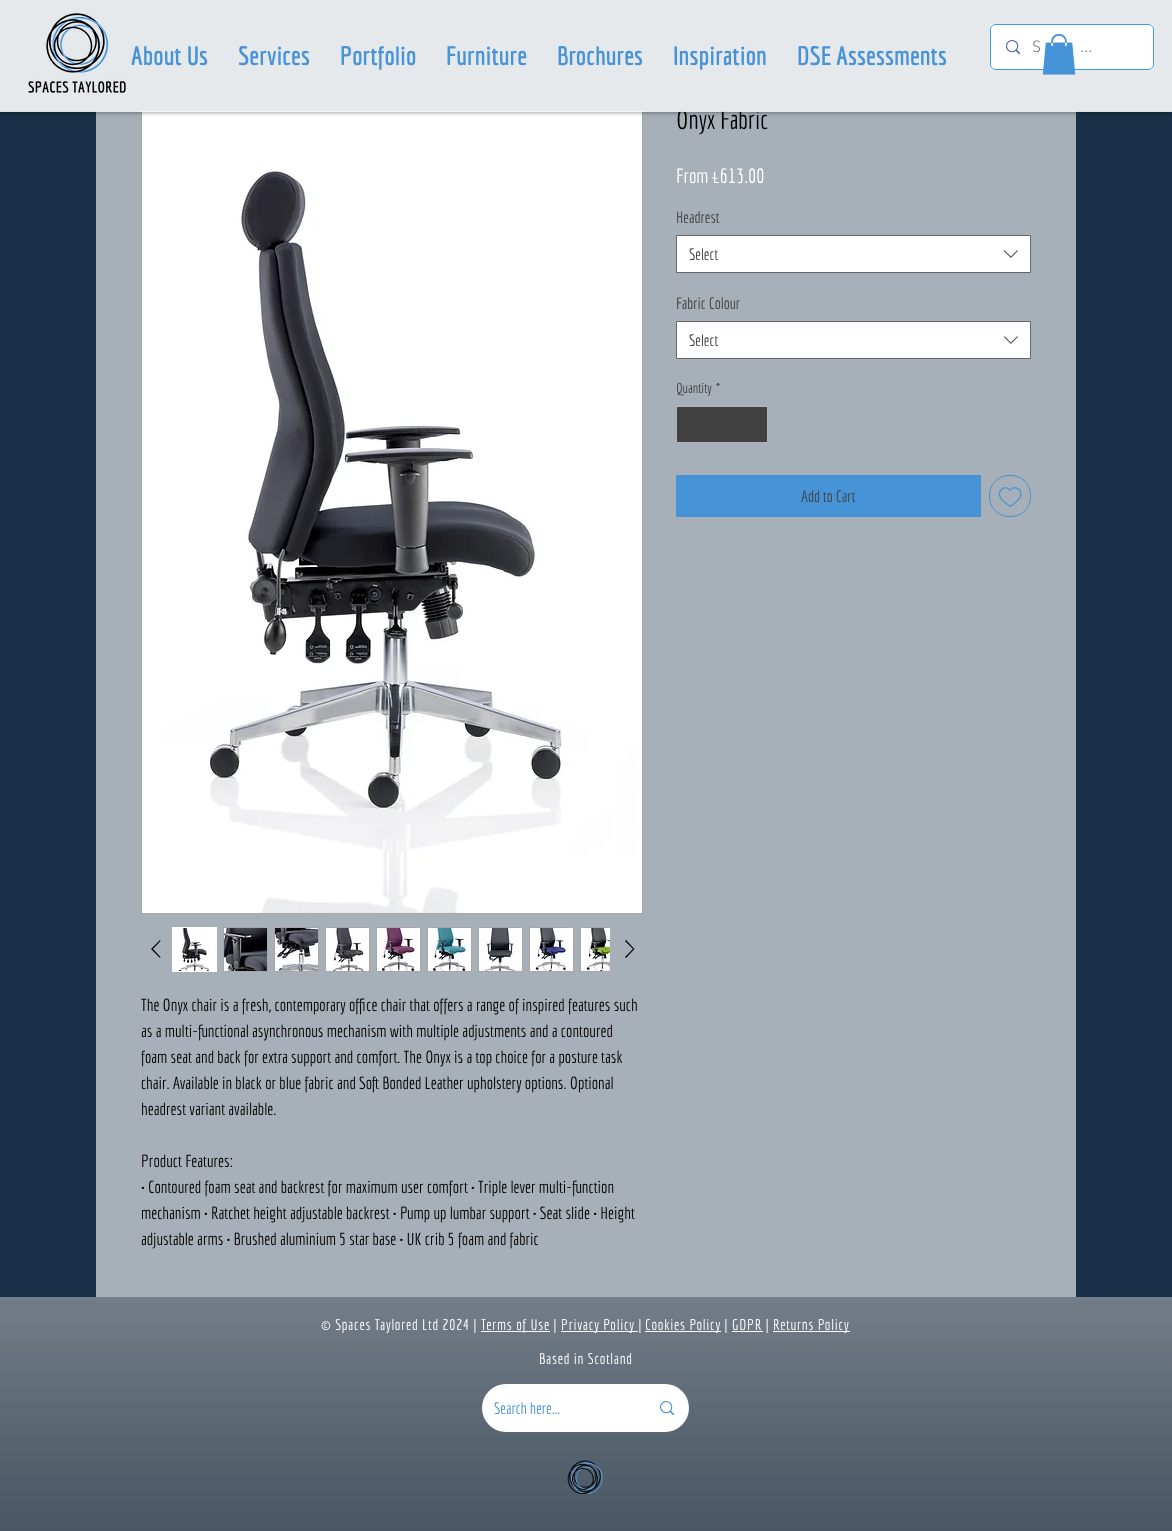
(async () => {
const canvas = document.querySelector("canvas")
canvas.width = 1172
canvas.height = 1531
const c = canvas.getContext("2d")
c.miterLimit = 4
c.fontKerning = "normal"
function T(s,x,y){c.fillText(s,x,y)}
function R(x,y,w,h){c.fillRect(x,y,w,h)}
function Q(x,y,w,h,r){c.beginPath();c.roundRect(x,y,w,h,r);c.fill()}
async function I(src,x,y,w,h){const img=new Image();img.src=src;await img.decode();c.drawImage(img,x,y,w,h)}
let path
c.fillStyle="#183148"
R(0,0,1172,1531)
c.fillStyle="#a7b0b9"
R(96,111,980,1186)
c.strokeStyle="#a7a7a6"
c.strokeRect(141.5,104.5,501,809)
await I("6.png",142,111,500,802)
c.fillStyle="#00000080"
c.filter="blur(2.5px)"
c.beginPath()
c.rect(0,0,1172,112)
c.fill()
c.filter="none"
c.font="26px Economica"
c.fillStyle="#000"
T("Onyx Fabric",676,129)
c.fillStyle="#ffffffdb"
R(0,111,1172,1)
c.fillStyle="#e6e9eb"
R(0,0,1172,111)
c.beginPath()
c.roundRect(990.5,24.5,163,45,5.5)
c.strokeStyle="#3d9be9"
c.stroke()
c.fillStyle="#fff"
Q(991,25,162,44,5)
await I("1.png",1042,34,34,41)
await I("2.png",28,13,98,80)
c.font="bold 26px Economica"
c.fillStyle="#4793d7"
T("About Us",131,65)
T("Services",238,65)
T("Portfolio",340,65)
T("Furniture",446,65)
T("Brochures",557,65)
T("Inspiration",673,65)
T("DSE Assessments",797,65)
await I("3.png",1006,40,14,14)
c.font="300 16px 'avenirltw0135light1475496'"
c.fillStyle="#787878"
T("S",1032,52)
T("...",1080,52)
c.font="20px Economica"
c.fillStyle="#fff"
T("From £613.00",676,183)
c.font="16px Economica"
c.fillStyle="#414141"
T("Headrest",676,223)
c.fillStyle="#fff"
c.beginPath()
c.rect(676.5,235.5,354,37)
c.fill()
c.strokeStyle="#666"
c.stroke()
c.fillStyle="#414141"
T("Select",689,260)
await I("4.png",1003,250,15,8)
T("Fabric Colour",676,309)
c.fillStyle="#fff"
c.beginPath()
c.rect(676.5,321.5,354,37)
c.fill()
c.stroke()
c.fillStyle="#414141"
T("Select",689,346)
await I("4.png",1003,336,15,8)
c.font="14px Economica"
T("Quantity",676,393)
T("*",716,393)
c.beginPath()
c.rect(676.5,406.5,91,36)
c.fill()
c.strokeStyle="#b3b3b3"
c.stroke()
c.fillStyle="#4793d7"
R(676,475,305,42)
c.font="16px Economica"
c.fillStyle="#414141"
T("Add to Cart",801,502)
c.beginPath()
c.roundRect(989.5,475.5,41,41,19.5)
c.strokeStyle="#4793d7"
c.stroke()
await I("5.png",998,487,24,20)
c.fillStyle="#000"
path = new Path2D("M160 940l.5 1l-7.5 8l7.5 8l-.5 1l-9-9z")
c.fill(path,"evenodd")
c.strokeStyle="#fff"
c.strokeRect(172.5,927.5,44,44)
await I("7.png",173,928,43,43)
c.strokeStyle="#a7a7a6"
c.strokeRect(223.5,927.5,44,44)
await I("8.png",224,928,43,43)
c.strokeRect(274.5,927.5,44,44)
await I("9.png",275,928,43,43)
c.strokeRect(325.5,927.5,44,44)
await I("10.png",326,928,43,43)
c.strokeRect(376.5,927.5,44,44)
await I("11.png",377,928,43,43)
c.strokeRect(427.5,927.5,44,44)
await I("12.png",428,928,43,43)
c.strokeRect(478.5,927.5,44,44)
await I("13.png",479,928,43,43)
c.strokeRect(529.5,927.5,44,44)
await I("14.png",530,928,43,43)
c.save()
c.beginPath()
c.rect(168,923,442,53)
c.clip()
c.strokeRect(580.5,927.5,44,44)
c.restore()
await I("15.png",581,928,29,43)
path = new Path2D("M626 940l8.5 9l-8.5 9l-1-1l8-8l-8-8z")
c.fill(path,"evenodd")
c.font="17px Economica"
T("The Onyx chair is a fresh, contemporary office chair that offers a range of inspired features such",141,1011)
T("as a multi-functional asynchronous mechanism with multiple adjustments and a contoured",141,1037)
T("foam seat and back for extra support and comfort. The Onyx is a top choice for a posture task",141,1063)
T("chair. Available in black or blue fabric and Soft Bonded Leather upholstery options. Optional",141,1089)
T("headrest variant available.",141,1115)
T("Product Features:",141,1167)
T("• Contoured foam seat and backrest for maximum user comfort • Triple lever multi-function",141,1193)
T("mechanism • Ratchet height adjustable backrest • Pump up lumbar support • Seat slide • Height",141,1219)
T("adjustable arms • Brushed aluminium 5 star base • UK crib 5 foam and fabric",141,1245)
c.fillStyle="#43515f"
R(0,1297,1172,234)
await I("16.png",0,1297,1172,234)
c.letterSpacing="0.75px"
c.font="15px Economica"
c.fillStyle="#fff"
T("© Spaces Taylored Ltd 2024 |",321,1330)
R(481,1331,69,1)
T("Terms of Use |",481,1330)
R(561,1331,77,1)
T("Privacy Policy |",561,1330)
R(645,1331,76,1)
T("Cookies Policy | GDPR |",645,1330)
R(732,1331,31,1)
R(773,1331,77,1)
T("Returns Policy",773,1330)
T("Based in Scotland",539,1364)
Q(482,1384,207,48,24)
c.letterSpacing="0px"
c.font="16px Economica"
c.fillStyle="#4793d7"
T("Search here...",494,1414)
await I("17.png",660,1401,14,14)
await I("18.png",567,1460,36,35)
})()
